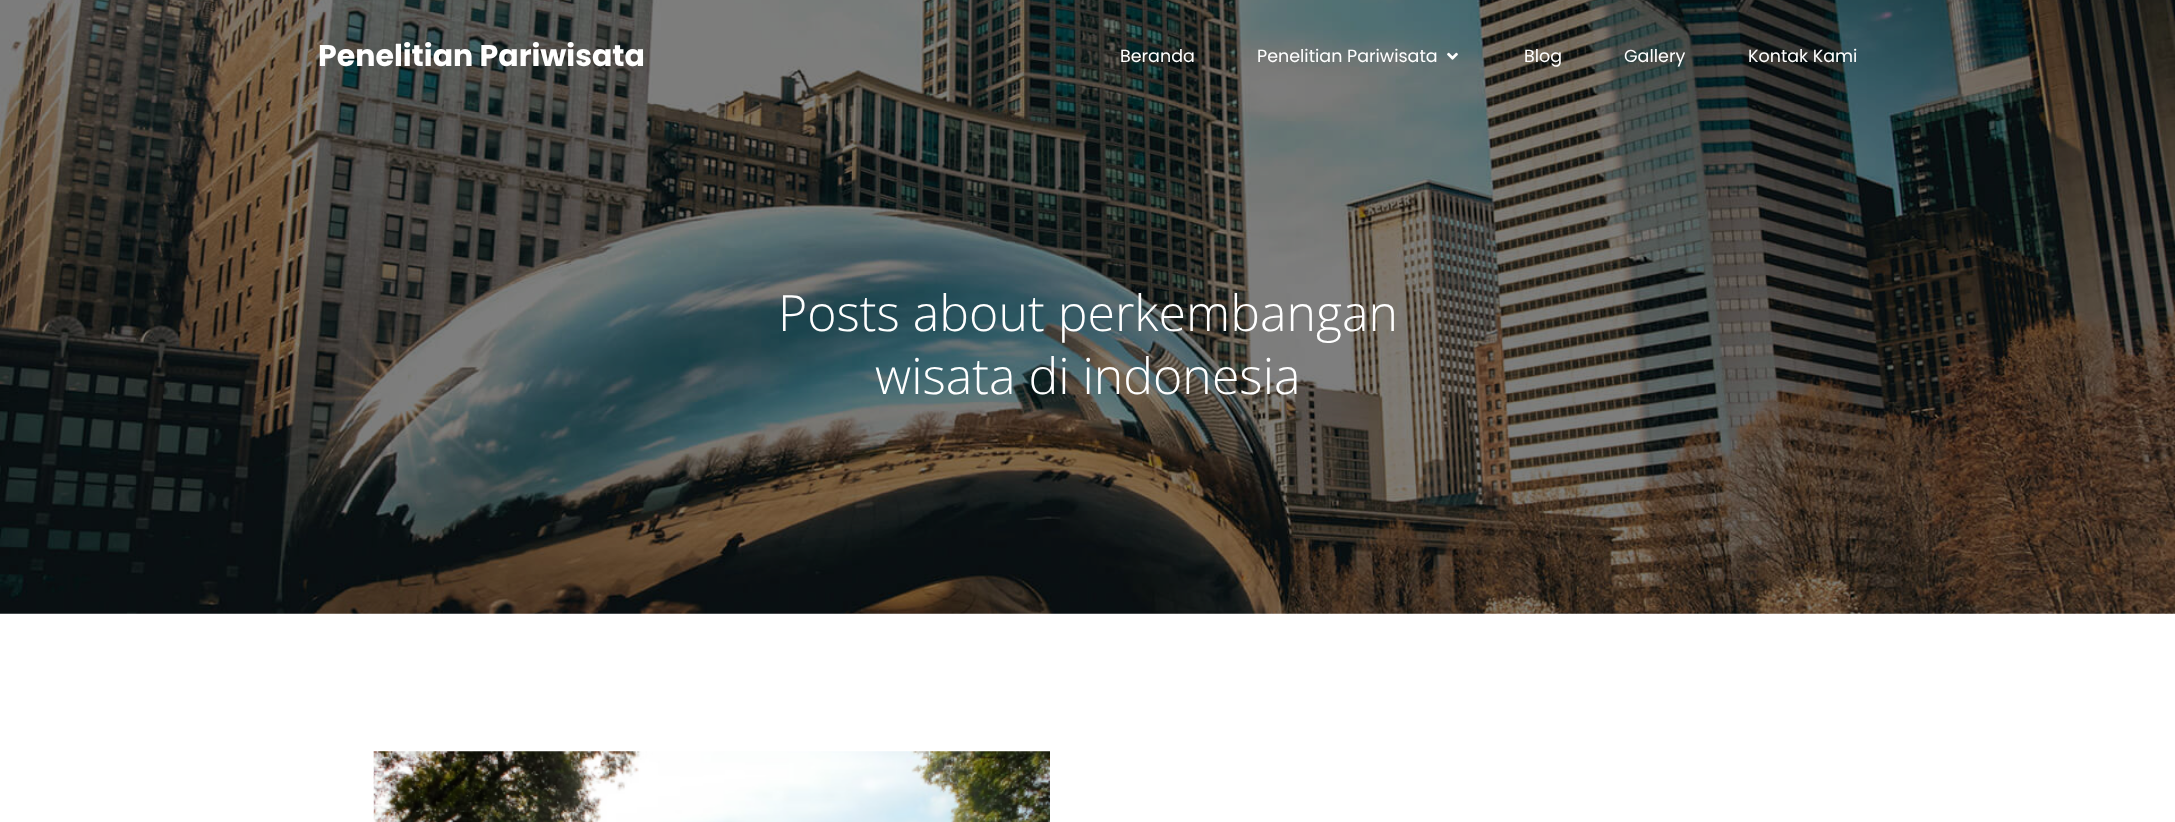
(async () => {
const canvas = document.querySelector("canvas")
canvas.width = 2175
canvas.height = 822
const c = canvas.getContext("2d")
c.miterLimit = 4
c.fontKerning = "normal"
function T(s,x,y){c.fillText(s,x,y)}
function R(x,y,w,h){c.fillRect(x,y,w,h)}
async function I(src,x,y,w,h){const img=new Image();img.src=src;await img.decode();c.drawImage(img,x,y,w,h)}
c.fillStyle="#fff"
R(0,0,2175,822)
await I("2.png",0,0,2175,614)
c.font="bold 30px Poppins"
T("Penelitian Pariwisata",318,66)
c.font="17.5px Poppins"
T("Beranda",1120,62)
T("Penelitian Pariwisata",1257,62)
await I("1.png",1447,52,11,8)
T("Blog",1524,62)
T("Gallery",1624,62)
T("Kontak Kami",1748,62)
c.font="300 50px Open Sans"
T("Posts about perkembangan",778,331)
T("wisata di indonesia",875,394)
await I("3.png",373,751,677,71)
})()
